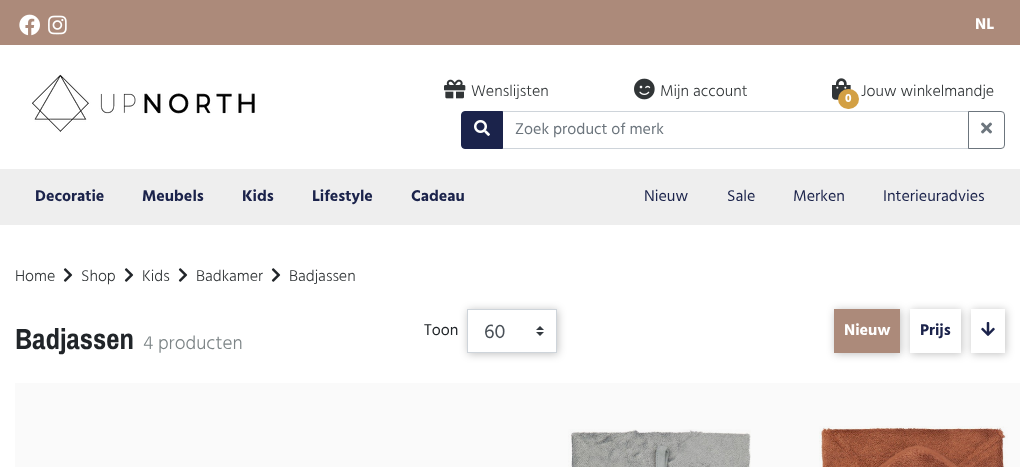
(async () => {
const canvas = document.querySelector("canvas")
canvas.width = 1020
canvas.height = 467
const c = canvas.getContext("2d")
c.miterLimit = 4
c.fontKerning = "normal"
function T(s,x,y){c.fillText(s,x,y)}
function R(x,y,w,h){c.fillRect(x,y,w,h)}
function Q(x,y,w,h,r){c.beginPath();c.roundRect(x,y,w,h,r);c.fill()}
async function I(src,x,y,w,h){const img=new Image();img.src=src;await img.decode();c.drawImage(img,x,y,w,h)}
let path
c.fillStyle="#fff"
R(0,0,1020,467)
c.fillStyle="#ac8a7a"
R(0,0,1020,45)
await I("1.png",19,14,21,22)
await I("2.png",48,15,19,20)
c.font="bold 16px Hind"
c.fillStyle="#fff"
T("NL",975,29)
await I("3.png",32,74,223,58)
await I("4.png",444,79,22,20)
c.font="300 16px Hind"
c.fillStyle="#313537"
T("Wenslijsten",471,96)
await I("5.png",634,78,21,22)
T("Mijn account",660,96)
await I("6.png",832,78,19,22)
c.fillStyle="#d3a044"
Q(838,89,21,20,10)
c.font="bold 12px Hind"
c.fillStyle="#fff"
T("0",845,102)
c.font="300 16px Hind"
c.fillStyle="#313537"
T("Jouw winkelmandje",861,96)
c.strokeStyle="#ced4da"
c.strokeRect(502.5,111.5,466,37)
c.fillStyle="#1b234b"
c.beginPath()
c.roundRect(461.5,111.5,41,37,[3.5,0,0,3.5])
c.fill()
c.strokeStyle="#1b234b"
c.stroke()
await I("7.png",474,120,16,16)
c.font="16px Hind"
c.fillStyle="#6c757d"
T("Zoek product of merk",515,134)
c.beginPath()
c.roundRect(968.5,111.5,36,37,[0,3.5,3.5,0])
c.strokeStyle="#6c757d"
c.stroke()
await I("8.png",981,122,11,12)
c.fillStyle="#eee"
R(0,169,1020,56)
c.font="bold 16px Hind"
c.fillStyle="#1b234b"
T("Decoratie",35,201)
T("Meubels",142,201)
T("Kids",242,201)
T("Lifestyle",312,201)
T("Cadeau",411,201)
c.font="16px Hind"
T("Nieuw",644,201)
T("Sale",727,201)
T("Merken",793,201)
T("Interieuradvies",883,201)
c.font="300 16px Hind"
c.fillStyle="#313537"
T("Home",15,281)
await I("9.png",63,268,10,14)
T("Shop",81,281)
await I("9.png",124,268,10,14)
T("Kids",142,281)
await I("9.png",178,268,10,14)
T("Badkamer",196,281)
await I("9.png",271,268,10,14)
T("Badjassen",289,281)
c.font="bold 29px Archivo Narrow"
c.fillStyle="#212529"
T("Badjassen",15,349)
c.font="300 19.25px Hind"
c.fillStyle="#7c8486"
T("4 producten",143,349)
c.font="16px Hind"
c.fillStyle="#212529"
T("Toon",424,335)
c.save()
path = new Path2D("M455 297h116v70h-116zm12 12h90v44h-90z")
c.clip(path,"evenodd")
c.fillStyle="#00000040"
c.filter="blur(4px)"
c.beginPath()
c.rect(468,310,90,44)
c.fill()
c.filter="none"
c.restore()
await I("10.png",536,326,8,10)
c.strokeStyle="#ced4da"
c.strokeRect(467.5,309.5,89,43)
c.font="20px Hind"
c.fillStyle="#495057"
T("60",484,338)
c.fillStyle="#00000040"
c.filter="blur(4px)"
c.beginPath()
c.rect(835,310,66,44)
c.fill()
c.filter="none"
c.fillStyle="#ac8a7a"
R(834,309,66,44)
c.font="bold 16px Hind"
c.fillStyle="#fff"
T("Nieuw",844,335)
c.save()
path = new Path2D("M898 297h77v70h-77zm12 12h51v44h-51z")
c.clip(path,"evenodd")
c.fillStyle="#00000040"
c.filter="blur(4px)"
c.beginPath()
c.rect(911,310,51,44)
c.fill()
c.filter="none"
c.restore()
c.fillStyle="#1b234b"
T("Prijs",920,335)
c.save()
path = new Path2D("M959 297h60v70h-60zm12 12h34v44h-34z")
c.clip(path,"evenodd")
c.fillStyle="#00000040"
c.filter="blur(4px)"
c.beginPath()
c.rect(972,310,34,44)
c.fill()
c.filter="none"
c.restore()
await I("11.png",981,322,14,14)
c.fillStyle="#fafafa"
R(15,383,1005,84)
await I("12.png",568,429,183,38)
await I("13.png",819,426,189,41)
})()
